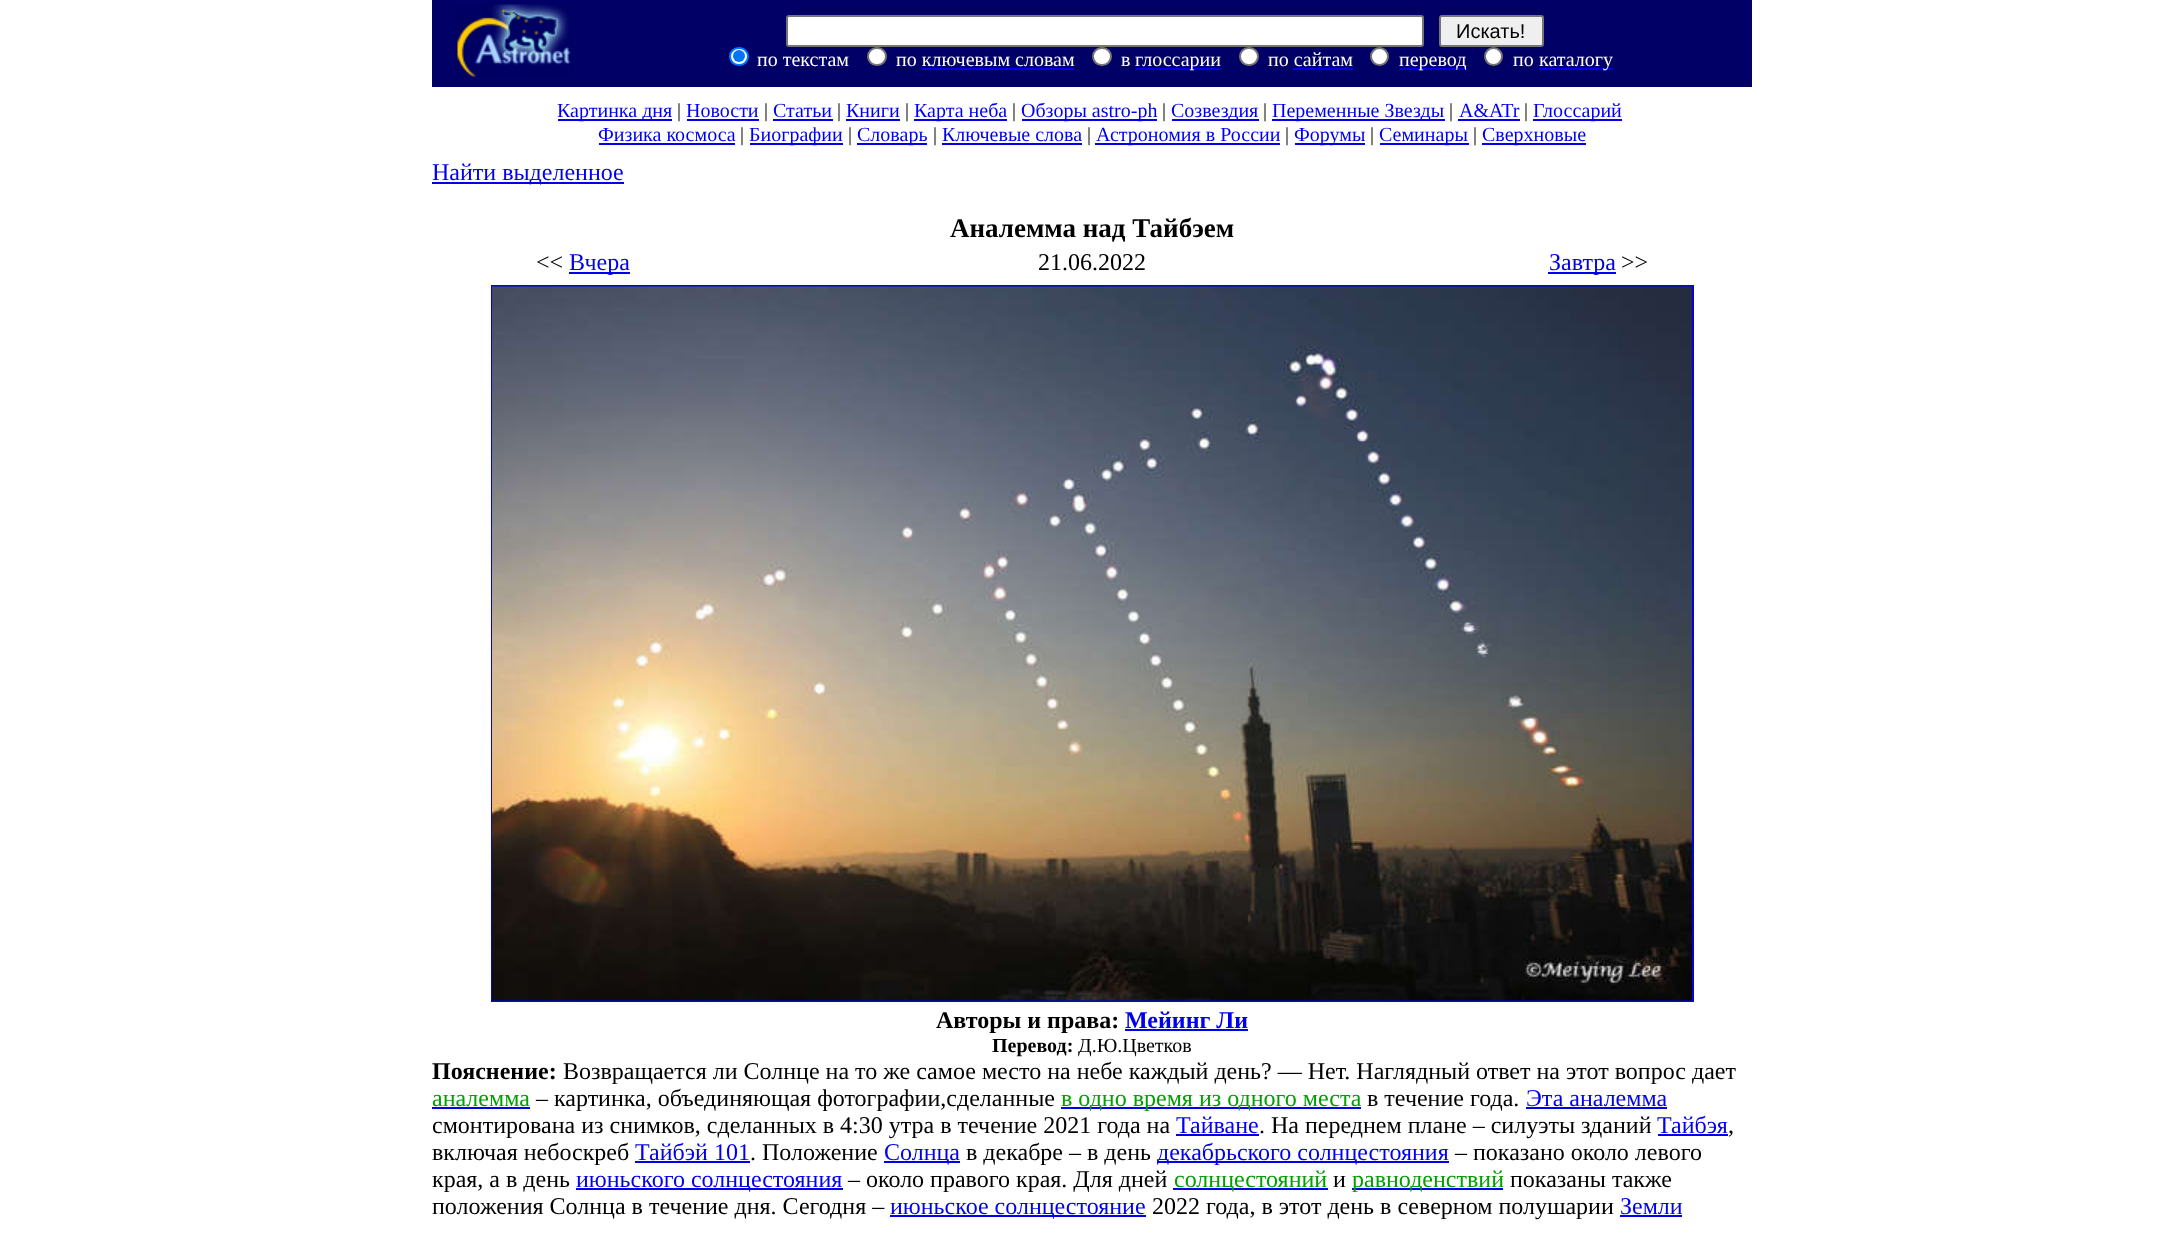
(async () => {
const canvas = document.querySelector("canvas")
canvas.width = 2184
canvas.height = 1233
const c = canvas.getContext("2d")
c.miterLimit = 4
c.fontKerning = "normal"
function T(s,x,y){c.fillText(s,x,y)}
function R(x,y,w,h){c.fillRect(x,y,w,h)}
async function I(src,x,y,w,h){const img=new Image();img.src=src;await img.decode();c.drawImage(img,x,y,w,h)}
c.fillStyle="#fff"
R(0,0,2184,1233)
c.fillStyle="#006"
R(432,0,1320,87)
await I("1.png",454,4,119,73)
c.fillStyle="#fff"
c.beginPath()
c.roundRect(787,16,636,30,2)
c.fill()
c.strokeStyle="#767676"
c.lineWidth=2
c.stroke()
c.fillStyle="#efefef"
c.beginPath()
c.roundRect(1440,16,103,30,2)
c.fill()
c.stroke()
c.font="20px Liberation Sans"
c.fillStyle="#000"
T("Искать!",1456,38)
c.fillStyle="#fff"
c.beginPath()
c.roundRect(730,48,18,17,8.5)
c.fill()
c.strokeStyle="#0075ff"
c.stroke()
c.fillStyle="#0075ff"
c.beginPath()
c.arc(739,56,6,0,7)
c.fill()
c.font="20px Liberation Serif"
c.fillStyle="#fff"
T("по текстам",757,66)
c.beginPath()
c.roundRect(868,48,18,17,8.5)
c.fill()
c.strokeStyle="#767676"
c.stroke()
T("по ключевым словам",896,66)
c.beginPath()
c.roundRect(1093,48,18,17,8.5)
c.fill()
c.stroke()
T("в",1121,66)
c.fillStyle="#00e"
R(1136,68,85,2)
c.fillStyle="#fff"
T("глоссарии",1135,66)
c.beginPath()
c.roundRect(1240,48,18,17,8.5)
c.fill()
c.stroke()
T("по сайтам",1268,66)
c.beginPath()
c.arc(1379.5,56.5,8.5,0,7)
c.fill()
c.stroke()
c.fillStyle="#00e"
R(1400,68,67,2)
c.fillStyle="#fff"
T("перевод",1399,66)
c.beginPath()
c.arc(1493.5,56.5,8.5,0,7)
c.fill()
c.stroke()
T("по",1513,66)
c.fillStyle="#00e"
R(1539,68,74,2)
c.fillStyle="#fff"
T("каталогу",1539,66)
c.fillStyle="#00e"
R(921,68,153,2)
R(1293,68,60,2)
R(558,119,114,2)
T("Картинка дня",557,117)
c.fillStyle="#000"
T("|",677,117)
c.fillStyle="#00e"
T("Новости",686,117)
R(687,119,72,2)
c.fillStyle="#000"
T("|",764,117)
c.fillStyle="#00e"
T("Статьи",773,117)
R(773,119,60,2)
c.fillStyle="#000"
T("|",837,117)
c.fillStyle="#00e"
T("Книги",846,117)
R(846,119,54,2)
c.fillStyle="#000"
T("|",905,117)
c.fillStyle="#00e"
R(914,119,93,2)
T("Карта неба",914,117)
c.fillStyle="#000"
T("|",1012,117)
c.fillStyle="#00e"
R(1022,119,135,2)
T("Обзоры astro-ph",1021,117)
c.fillStyle="#000"
T("|",1162,117)
c.fillStyle="#00e"
R(1172,119,87,2)
T("Созвездия",1171,117)
c.fillStyle="#000"
T("|",1263,117)
c.fillStyle="#00e"
R(1272,119,173,2)
T("Переменные Звезды",1272,117)
c.fillStyle="#000"
T("|",1449,117)
c.fillStyle="#00e"
T("A&ATr",1459,117)
R(1458,119,62,2)
c.fillStyle="#000"
T("|",1524,117)
c.fillStyle="#00e"
R(1533,119,89,2)
T("Глоссарий",1533,117)
T("Физика космоса",598,141)
R(599,143,136,2)
c.fillStyle="#000"
T("|",740,141)
c.fillStyle="#00e"
R(750,143,93,2)
T("Биографии",749,141)
c.fillStyle="#000"
T("|",848,141)
c.fillStyle="#00e"
R(857,143,70,2)
T("Словарь",857,141)
c.fillStyle="#000"
T("|",933,141)
c.fillStyle="#00e"
T("Ключевые слова",942,141)
R(942,143,140,2)
c.fillStyle="#000"
T("|",1087,141)
c.fillStyle="#00e"
R(1095,143,185,2)
T("Астрономия в России",1096,141)
c.fillStyle="#000"
T("|",1285,141)
c.fillStyle="#00e"
R(1295,143,70,2)
T("Форумы",1294,141)
c.fillStyle="#000"
T("|",1370,141)
c.fillStyle="#00e"
R(1380,143,89,2)
T("Семинары",1379,141)
c.fillStyle="#000"
T("|",1473,141)
c.fillStyle="#00e"
R(1482,143,104,2)
T("Сверхновые",1482,141)
R(432,182,192,2)
c.font="24px Liberation Serif"
T("Найти выделенное",432,180)
c.font="bold 27px Liberation Serif"
c.fillStyle="#000"
T("Аналемма над Тайбэем",950,237)
c.font="24px Liberation Serif"
T("<<",536,270)
c.fillStyle="#00e"
R(569,272,61,2)
T("Вчера",569,270)
c.fillStyle="#000"
T("21.06.2022",1038,270)
c.fillStyle="#00e"
R(1548,272,68,2)
T("Завтра",1549,270)
c.fillStyle="#000"
T(">>",1621,270)
c.strokeStyle="#00e"
c.strokeRect(492,286,1201,715)
await I("2.png",492,286,1200,715)
c.font="bold 24px Liberation Serif"
T("Авторы и права:",936,1028)
c.fillStyle="#00e"
T("Мейинг Ли",1125,1028)
R(1125,1029,123,2)
c.font="bold 20px Liberation Serif"
c.fillStyle="#000"
T("Перевод:",992,1052)
c.font="20px Liberation Serif"
T("Д.Ю.Цветков",1078,1052)
c.font="bold 24px Liberation Serif"
T("Пояснение:",432,1079)
c.font="24px Liberation Serif"
T("Возвращается ли Солнце на то же самое место на небе каждый день? — Нет. Наглядный ответ на этот вопрос дает",563,1079)
c.fillStyle="#00a000"
T("аналемма",432,1106)
c.fillStyle="#00e"
R(432,1107,98,2)
c.fillStyle="#000"
T("– картинка, объединяющая фотографии,сделанные",536,1106)
c.fillStyle="#00e"
R(1061,1107,300,2)
c.fillStyle="#00a000"
T("в одно время из одного места",1061,1106)
c.fillStyle="#000"
T("в течение года.",1367,1106)
c.fillStyle="#00e"
T("Эта аналемма",1526,1106)
R(1526,1107,141,2)
c.fillStyle="#000"
T("смонтирована из снимков, сделанных в 4:30 утра в течение 2021 года на",432,1133)
c.fillStyle="#00e"
T("Тайване",1176,1133)
R(1176,1134,83,2)
c.fillStyle="#000"
T(". На переднем плане – силуэты зданий",1259,1133)
c.fillStyle="#00e"
T("Тайбэя",1657,1133)
R(1658,1134,70,2)
c.fillStyle="#000"
T(",",1728,1133)
T("включая небоскреб",432,1160)
c.fillStyle="#00e"
T("Тайбэй 101",635,1160)
R(635,1161,115,2)
c.fillStyle="#000"
T(". Положение",750,1160)
c.fillStyle="#00e"
R(884,1161,76,2)
T("Солнца",884,1160)
c.fillStyle="#000"
T("в декабре – в день",966,1160)
c.fillStyle="#00e"
R(1157,1161,292,2)
T("декабрьского солнцестояния",1157,1160)
c.fillStyle="#000"
T("– показано около левого",1455,1160)
T("края, а в день",432,1187)
c.fillStyle="#00e"
R(576,1188,267,2)
T("июньского солнцестояния",576,1187)
c.fillStyle="#000"
T("– около правого края. Для дней",848,1187)
c.fillStyle="#00e"
R(1173,1188,155,2)
c.fillStyle="#00a000"
T("солнцестояний",1174,1187)
c.fillStyle="#000"
T("и",1333,1187)
c.fillStyle="#00e"
R(1352,1188,151,2)
c.fillStyle="#00a000"
T("равноденствий",1352,1187)
c.fillStyle="#000"
T("показаны также",1510,1187)
T("положения Солнца в течение дня. Сегодня –",432,1214)
c.fillStyle="#00e"
R(890,1215,256,2)
T("июньское солнцестояние",890,1214)
c.fillStyle="#000"
T("2022 года, в этот день в северном полушарии",1152,1214)
c.fillStyle="#00e"
T("Земли",1620,1214)
R(1620,1215,62,2)
})()
